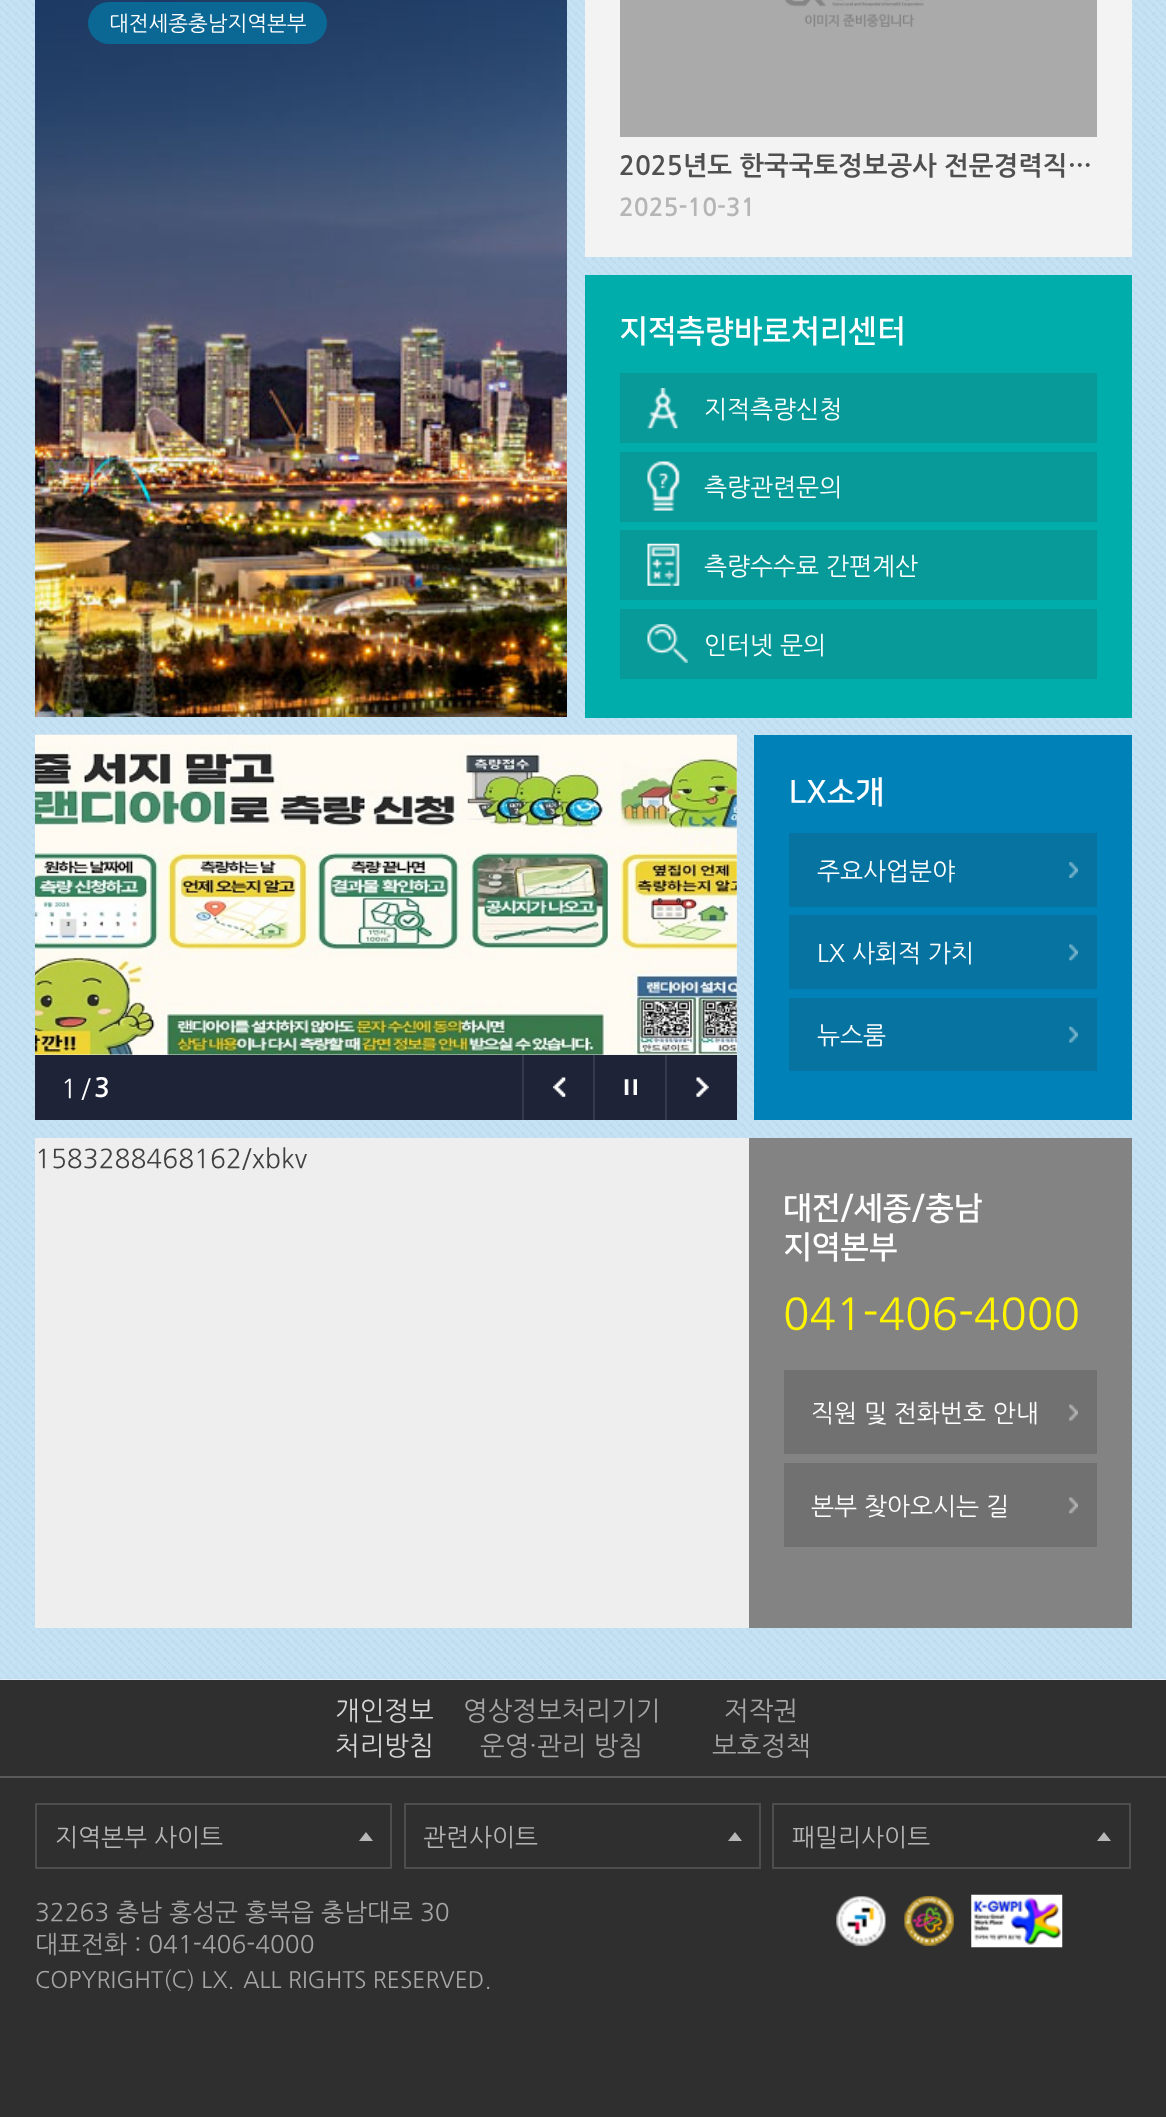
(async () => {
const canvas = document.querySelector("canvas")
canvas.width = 1166
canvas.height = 2117
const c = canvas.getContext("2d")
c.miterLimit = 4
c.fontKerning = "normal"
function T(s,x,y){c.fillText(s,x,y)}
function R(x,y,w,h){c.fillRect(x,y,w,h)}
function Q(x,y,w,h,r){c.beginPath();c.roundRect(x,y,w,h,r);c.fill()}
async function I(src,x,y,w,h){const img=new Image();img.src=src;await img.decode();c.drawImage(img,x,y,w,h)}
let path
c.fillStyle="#fff"
R(0,0,1166,2117)
await I("1.png",0,0,1166,1680)
await I("2.png",35,0,532,717)
c.fillStyle="#0673a0cc"
Q(88,2,239,42,21)
c.font="21px NanumGothic"
c.fillStyle="#fff"
T("대전세종충남지역본부",109,30)
c.fillStyle="#f3f3f3"
R(585,0,547,257)
c.fillStyle="#aaa"
R(620,0,477,137)
await I("3.png",785,0,139,28)
c.font="bold 26.25px NanumGothic"
c.fillStyle="#505050"
T("2025년도 한국국토정보공사 전문경력직…",619,175)
c.font="bold 24.5px NanumGothic"
c.fillStyle="#b5b5b5"
T("2025-10-31",619,216)
c.fillStyle="#00adab"
R(585,275,547,443)
c.font="bold 31.5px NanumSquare"
c.fillStyle="#fff"
T("지적측량바로처리센터",619,341)
c.fillStyle="#079a98"
R(620,373,477,70)
await I("4.png",647,388,31,41)
c.font="24.5px NanumGothic"
c.fillStyle="#fff"
T("지적측량신청",704,417)
c.fillStyle="#079a98"
R(620,452,477,70)
await I("5.png",647,461,33,50)
c.fillStyle="#fff"
T("측량관련문의",704,495)
c.fillStyle="#079a98"
R(620,530,477,70)
await I("6.png",647,543,33,43)
c.fillStyle="#fff"
T("측량수수료 간편계산",704,574)
c.fillStyle="#079a98"
R(620,609,477,70)
await I("7.png",647,624,41,39)
c.fillStyle="#fff"
T("인터넷 문의",704,653)
c.fillStyle="#0082b9"
R(754,735,378,385)
c.font="bold 31.5px NanumSquare"
c.fillStyle="#fff"
T("LX소개",789,802)
c.fillStyle="#0673a0"
R(789,833,308,74)
await I("8.png",1069,862,9,16)
c.font="24.5px NanumGothic"
c.fillStyle="#fff"
T("주요사업분야",817,879)
c.fillStyle="#0673a0"
R(789,915,308,74)
await I("9.png",1069,944,9,17)
c.fillStyle="#fff"
T("LX 사회적 가치",817,961)
c.fillStyle="#0673a0"
R(789,998,308,73)
await I("10.png",1069,1026,9,17)
c.fillStyle="#fff"
T("뉴스룸",817,1043)
c.fillStyle="#1e2337"
R(35,1055,702,65)
c.fillStyle="#eee"
R(35,735,702,320)
await I("11.png",35,734,702,321)
c.letterSpacing="4px"
c.font="26.25px NanumGothic"
c.fillStyle="#fff"
T("1/",61,1097)
c.font="bold 26.25px NanumGothic"
T("3",94,1097)
await I("12.png",553,1077,13,20)
c.fillStyle="#35394b"
R(522,1055,2,65)
await I("13.png",624,1079,13,16)
R(593,1055,2,65)
await I("14.png",696,1077,13,20)
R(665,1055,2,65)
c.fillStyle="#eee"
R(35,1138,714,490)
c.letterSpacing="0px"
c.font="26.25px NanumGothic"
c.fillStyle="#404040"
T("1583288468162/xbkv",35,1167)
c.fillStyle="#848383"
R(749,1138,383,490)
c.font="bold 31.5px NanumSquare"
c.fillStyle="#fff"
T("대전/세종/충남",783,1218)
T("지역본부",783,1257)
c.font="43.75px NanumGothic"
c.fillStyle="#fff500"
T("041-406-4000",783,1328)
c.fillStyle="#727171"
R(784,1370,313,84)
await I("15.png",1069,1404,9,17)
c.font="24.5px NanumGothic"
c.fillStyle="#fff"
T("직원 및 전화번호 안내",811,1421)
c.fillStyle="#727171"
R(784,1463,313,84)
await I("16.png",1069,1497,9,17)
c.fillStyle="#fff"
T("본부 찾아오시는 길",811,1514)
c.fillStyle="#2f2f2f"
R(0,1680,1166,437)
c.font="26.25px NanumGothic"
c.fillStyle="#d5d5d5"
T("개인정보",335,1719)
T("처리방침",335,1754)
c.fillStyle="#a5a5a5"
T("영상정보처리기기",463,1719)
T("운영·관리 방침",480,1754)
T("저작권",724,1719)
T("보호정책",712,1754)
c.strokeStyle="#4e4e4e"
c.lineWidth=2
c.strokeRect(36,1804,355,64)
c.font="24.5px NanumGothic"
c.fillStyle="#b5b5b5"
T("지역본부 사이트",55,1845)
c.fillStyle="#b8b8b8"
path = new Path2D("M373 1841h-14l7-9z")
c.fill(path)
c.strokeRect(405,1804,355,64)
c.fillStyle="#b5b5b5"
T("관련사이트",423,1845)
c.fillStyle="#b8b8b8"
path = new Path2D("M742 1841h-14l7-9z")
c.fill(path)
c.strokeRect(773,1804,357,64)
c.fillStyle="#b5b5b5"
T("패밀리사이트",792,1845)
c.fillStyle="#b8b8b8"
path = new Path2D("M1111 1841h-14l7-9z")
c.fill(path)
c.fillStyle="#a5a5a5"
T("32263 충남 홍성군 홍북읍 충남대로 30",35,1920)
T("대표전화 : 041-406-4000",35,1952)
await I("17.png",836,1896,50,51)
await I("18.png",904,1896,50,51)
await I("19.png",971,1894,92,54)
c.font="22.75px NanumGothic"
T("COPYRIGHT(C) LX.",35,1987)
T("ALL RIGHTS RESERVED.",243,1987)
c.fillStyle="#595959"
R(0,1776,1166,2)
})()
